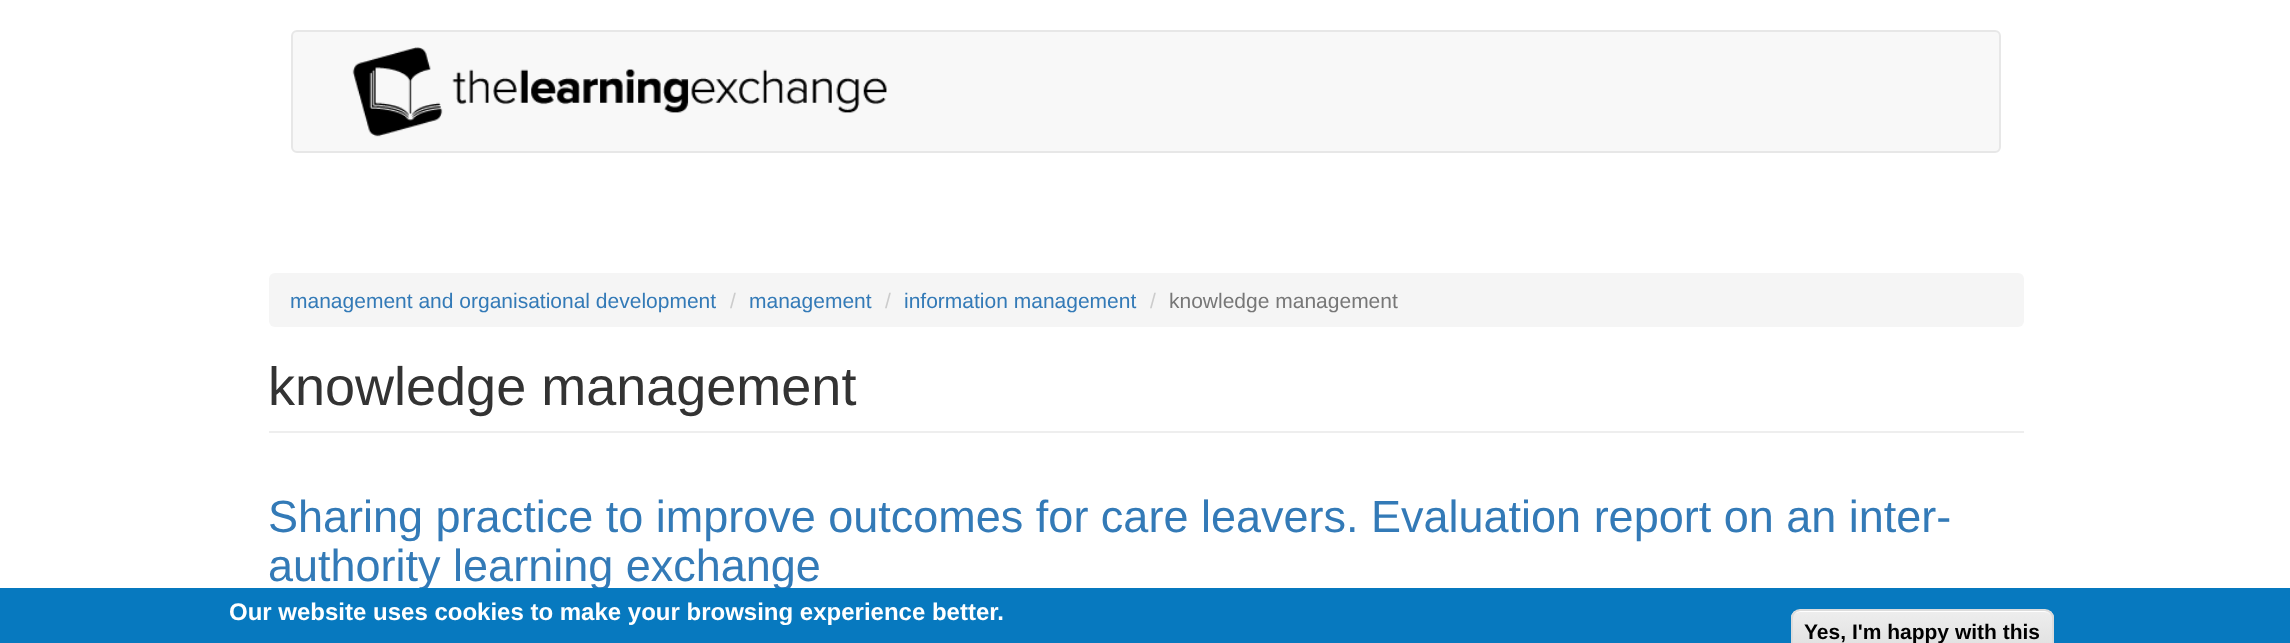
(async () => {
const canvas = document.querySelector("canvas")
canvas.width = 2290
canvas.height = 643
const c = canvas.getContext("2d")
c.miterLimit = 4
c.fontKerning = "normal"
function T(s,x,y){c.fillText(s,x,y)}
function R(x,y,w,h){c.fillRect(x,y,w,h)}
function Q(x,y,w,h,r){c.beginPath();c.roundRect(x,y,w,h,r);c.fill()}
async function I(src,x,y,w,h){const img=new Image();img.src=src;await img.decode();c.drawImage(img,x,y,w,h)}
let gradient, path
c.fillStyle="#fff"
R(0,0,2290,643)
c.fillStyle="#f8f8f8"
c.beginPath()
c.roundRect(292,31,1708,121,5)
c.fill()
c.strokeStyle="#e7e7e7"
c.lineWidth=2
c.stroke()
await I("1.png",352,47,535,90)
c.fillStyle="#f5f5f5"
Q(269,273,1755,54,6)
c.font="21px Liberation Sans"
c.fillStyle="#337ab7"
T("management and organisational development",290,308)
c.fillStyle="#ccc"
T("/",730,308)
c.fillStyle="#337ab7"
T("management",749,308)
c.fillStyle="#ccc"
T("/",885,308)
c.fillStyle="#337ab7"
T("information management",904,308)
c.fillStyle="#ccc"
T("/",1150,308)
c.fillStyle="#777"
T("knowledge management",1169,308)
c.fillStyle="#eee"
R(269,431,1755,2)
c.font="54px Liberation Sans"
c.fillStyle="#333"
T("knowledge management",268,405)
c.font="45px Liberation Sans"
c.fillStyle="#337ab7"
T("Sharing practice to improve outcomes for care leavers. Evaluation report on an inter-",268,532)
T("authority learning exchange",268,581)
c.fillStyle="#0779bf"
R(0,588,2290,55)
c.font="bold 24px Liberation Sans"
c.fillStyle="#fff"
T("Our website uses cookies to make your browsing experience better.",229,620)
c.save()
c.beginPath()
c.roundRect(1791,609,263,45,9)
c.clip()
gradient = c.createLinearGradient(1922,611,1922,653)
gradient.addColorStop(.05,"#ededed")
gradient.addColorStop(1,"#dfdfdf")
c.fillStyle = gradient
R(1791,611,263,32)
c.restore()
path = new Path2D("M1800 612h244c5 0 8 3 8 8v-1c0-4-4-8-8-8h-243c-2 0-5 1-6 3c1-1 3-2 5-2z")
c.fill(path)
c.beginPath()
c.roundRect(1792,610,261,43,8)
c.strokeStyle="#dcdcdc"
c.stroke()
c.font="bold 21px Liberation Sans"
c.fillStyle="#000"
T("Yes, I'm happy with this",1804,639)
})()
